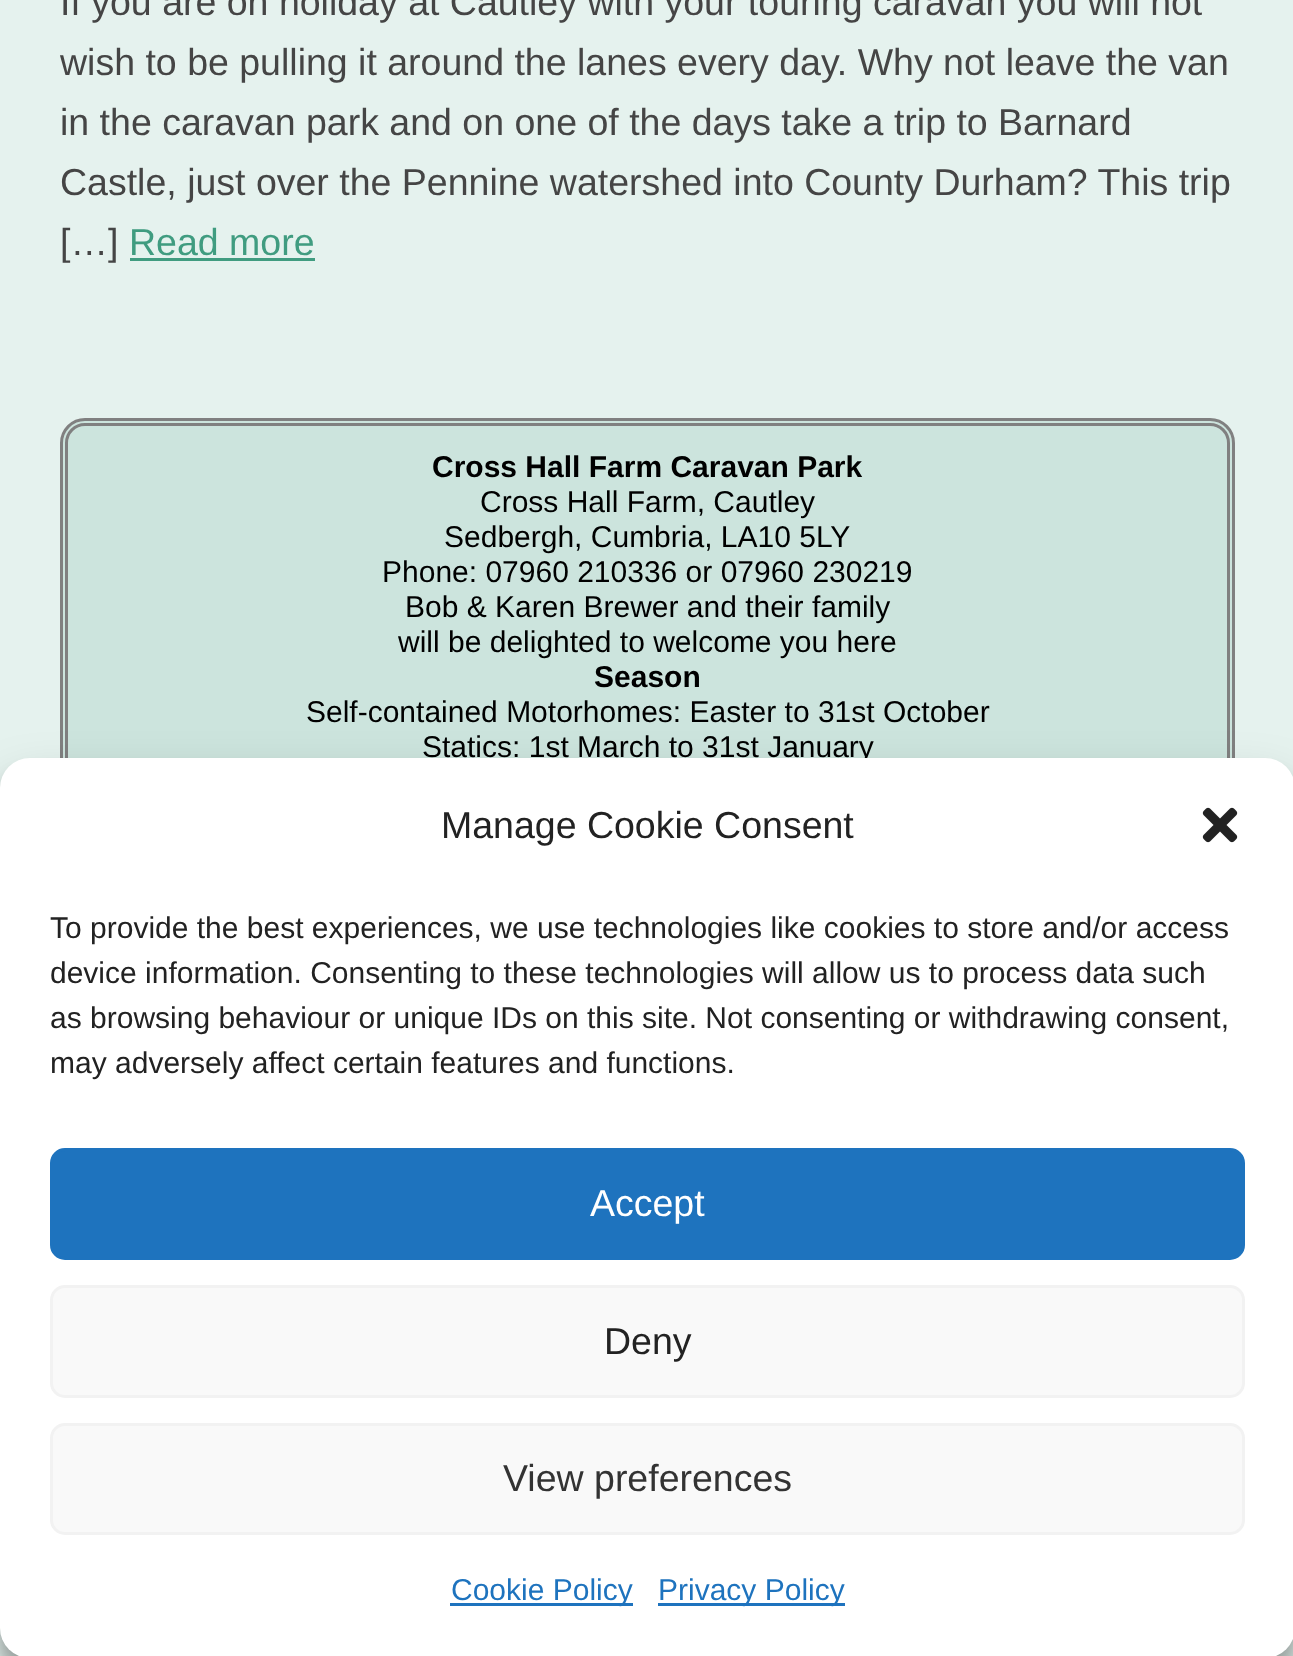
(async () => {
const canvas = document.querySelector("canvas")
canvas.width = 1293
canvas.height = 1656
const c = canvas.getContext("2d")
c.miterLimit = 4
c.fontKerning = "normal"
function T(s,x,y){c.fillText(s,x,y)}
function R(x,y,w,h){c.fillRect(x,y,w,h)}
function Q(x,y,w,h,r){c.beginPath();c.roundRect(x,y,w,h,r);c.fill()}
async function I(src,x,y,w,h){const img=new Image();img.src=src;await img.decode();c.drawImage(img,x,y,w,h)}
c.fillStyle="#e5f2ee"
R(0,0,1293,1656)
c.font="37.5px Liberation Sans"
c.fillStyle="#454545"
T("If you are on holiday at Cautley with your touring caravan you will not",60,15)
T("wish to be pulling it around the lanes every day. Why not leave the van",60,75)
T("in the caravan park and on one of the days take a trip to Barnard",60,135)
T("Castle, just over the Pennine watershed into County Durham? This trip",60,195)
T("[…]",60,255)
c.fillStyle="#409c80"
T("Read more",129,255)
R(130,258,185,3)
c.fillStyle="#cce4dd"
c.beginPath()
c.roundRect(61.5,419.5,1172,377,23.5)
c.fill()
c.strokeStyle="#808080"
c.lineWidth=3
c.stroke()
c.beginPath()
c.roundRect(66.5,424.5,1162,367,18.5)
c.stroke()
c.font="bold 30px Liberation Sans"
c.fillStyle="#000"
T("Cross Hall Farm Caravan Park",432,477)
c.font="30px Liberation Sans"
T("Cross Hall Farm, Cautley",480,512)
T("Sedbergh, Cumbria, LA10 5LY",444,547)
T("Phone: 07960 210336 or 07960 230219",382,582)
T("Bob & Karen Brewer and their family",405,617)
T("will be delighted to welcome you here",398,652)
c.font="bold 30px Liberation Sans"
T("Season",594,687)
c.font="30px Liberation Sans"
T("Self-contained Motorhomes: Easter to 31st October",306,722)
T("Statics: 1st March to 31st January",422,757)
c.fillStyle="#0000003b"
c.filter="blur(7.5px)"
c.beginPath()
c.roundRect(0,773,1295,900,30)
c.fill()
c.filter="none"
c.fillStyle="#00000030"
c.filter="blur(25px)"
c.beginPath()
c.roundRect(0,783,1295,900,30)
c.fill()
c.filter="none"
c.fillStyle="#fff"
Q(0,758,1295,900,30)
c.font="37.5px Liberation Sans"
c.fillStyle="#222"
T("Manage Cookie Consent",441,838)
await I("1.png",1202,807,36,36)
c.font="30px Liberation Sans"
T("To provide the best experiences, we use technologies like cookies to store and/or access",50,938)
T("device information. Consenting to these technologies will allow us to process data such",50,983)
T("as browsing behaviour or unique IDs on this site. Not consenting or withdrawing consent,",50,1028)
T("may adversely affect certain features and functions.",50,1073)
c.fillStyle="#1e73be"
c.beginPath()
c.roundRect(51.5,1149.5,1192,109,13.5)
c.fill()
c.strokeStyle="#1e73be"
c.stroke()
c.font="37.5px Liberation Sans"
c.fillStyle="#fff"
T("Accept",590,1216)
c.fillStyle="#f9f9f9"
c.beginPath()
c.roundRect(51.5,1286.5,1192,110,13.5)
c.fill()
c.strokeStyle="#f2f2f2"
c.stroke()
c.fillStyle="#222"
T("Deny",604,1354)
c.fillStyle="#f9f9f9"
c.beginPath()
c.roundRect(51.5,1424.5,1192,109,13.5)
c.fill()
c.stroke()
c.fillStyle="#333"
T("View preferences",503,1491)
c.fillStyle="#1e73be"
R(450,1603,183,3)
c.font="30px Liberation Sans"
T("Cookie Policy",451,1600)
R(658,1603,187,3)
T("Privacy Policy",658,1600)
})()
